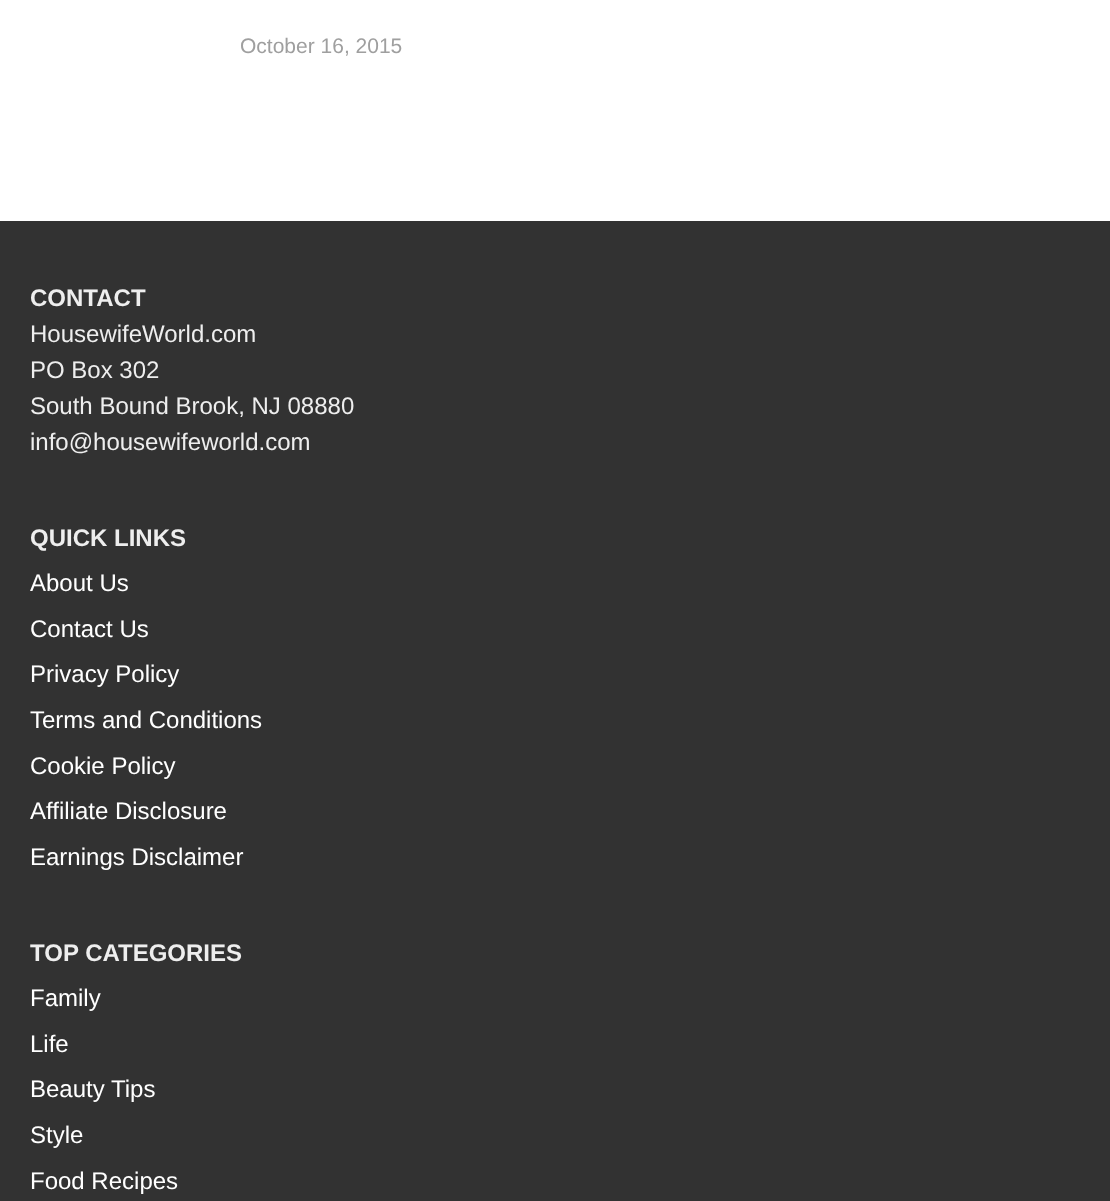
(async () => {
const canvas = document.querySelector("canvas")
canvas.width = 1110
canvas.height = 1201
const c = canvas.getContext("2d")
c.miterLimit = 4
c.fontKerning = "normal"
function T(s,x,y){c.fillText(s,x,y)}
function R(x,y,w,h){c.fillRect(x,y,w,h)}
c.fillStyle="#fff"
R(0,0,1110,1201)
c.font="21px Liberation Sans"
c.fillStyle="#9f9f9f"
T("October 16, 2015",240,53)
c.fillStyle="#323232"
R(0,221,1110,980)
c.font="bold 24px Liberation Sans"
c.fillStyle="#eee"
T("CONTACT",30,306)
c.font="24px Liberation Sans"
T("HousewifeWorld.com",30,342)
T("PO Box 302",30,378)
T("South Bound Brook, NJ 08880",30,414)
T("info@housewifeworld.com",30,450)
c.font="bold 24px Liberation Sans"
T("QUICK LINKS",30,546)
c.font="24px Liberation Sans"
c.fillStyle="#fff"
T("About Us",30,591)
T("Contact Us",30,637)
T("Privacy Policy",30,682)
T("Terms and Conditions",30,728)
T("Cookie Policy",30,774)
T("Affiliate Disclosure",30,819)
T("Earnings Disclaimer",30,865)
c.font="bold 24px Liberation Sans"
c.fillStyle="#eee"
T("TOP CATEGORIES",30,961)
c.font="24px Liberation Sans"
c.fillStyle="#fff"
T("Family",30,1006)
T("Life",30,1052)
T("Beauty Tips",30,1097)
T("Style",30,1143)
T("Food Recipes",30,1189)
})()
